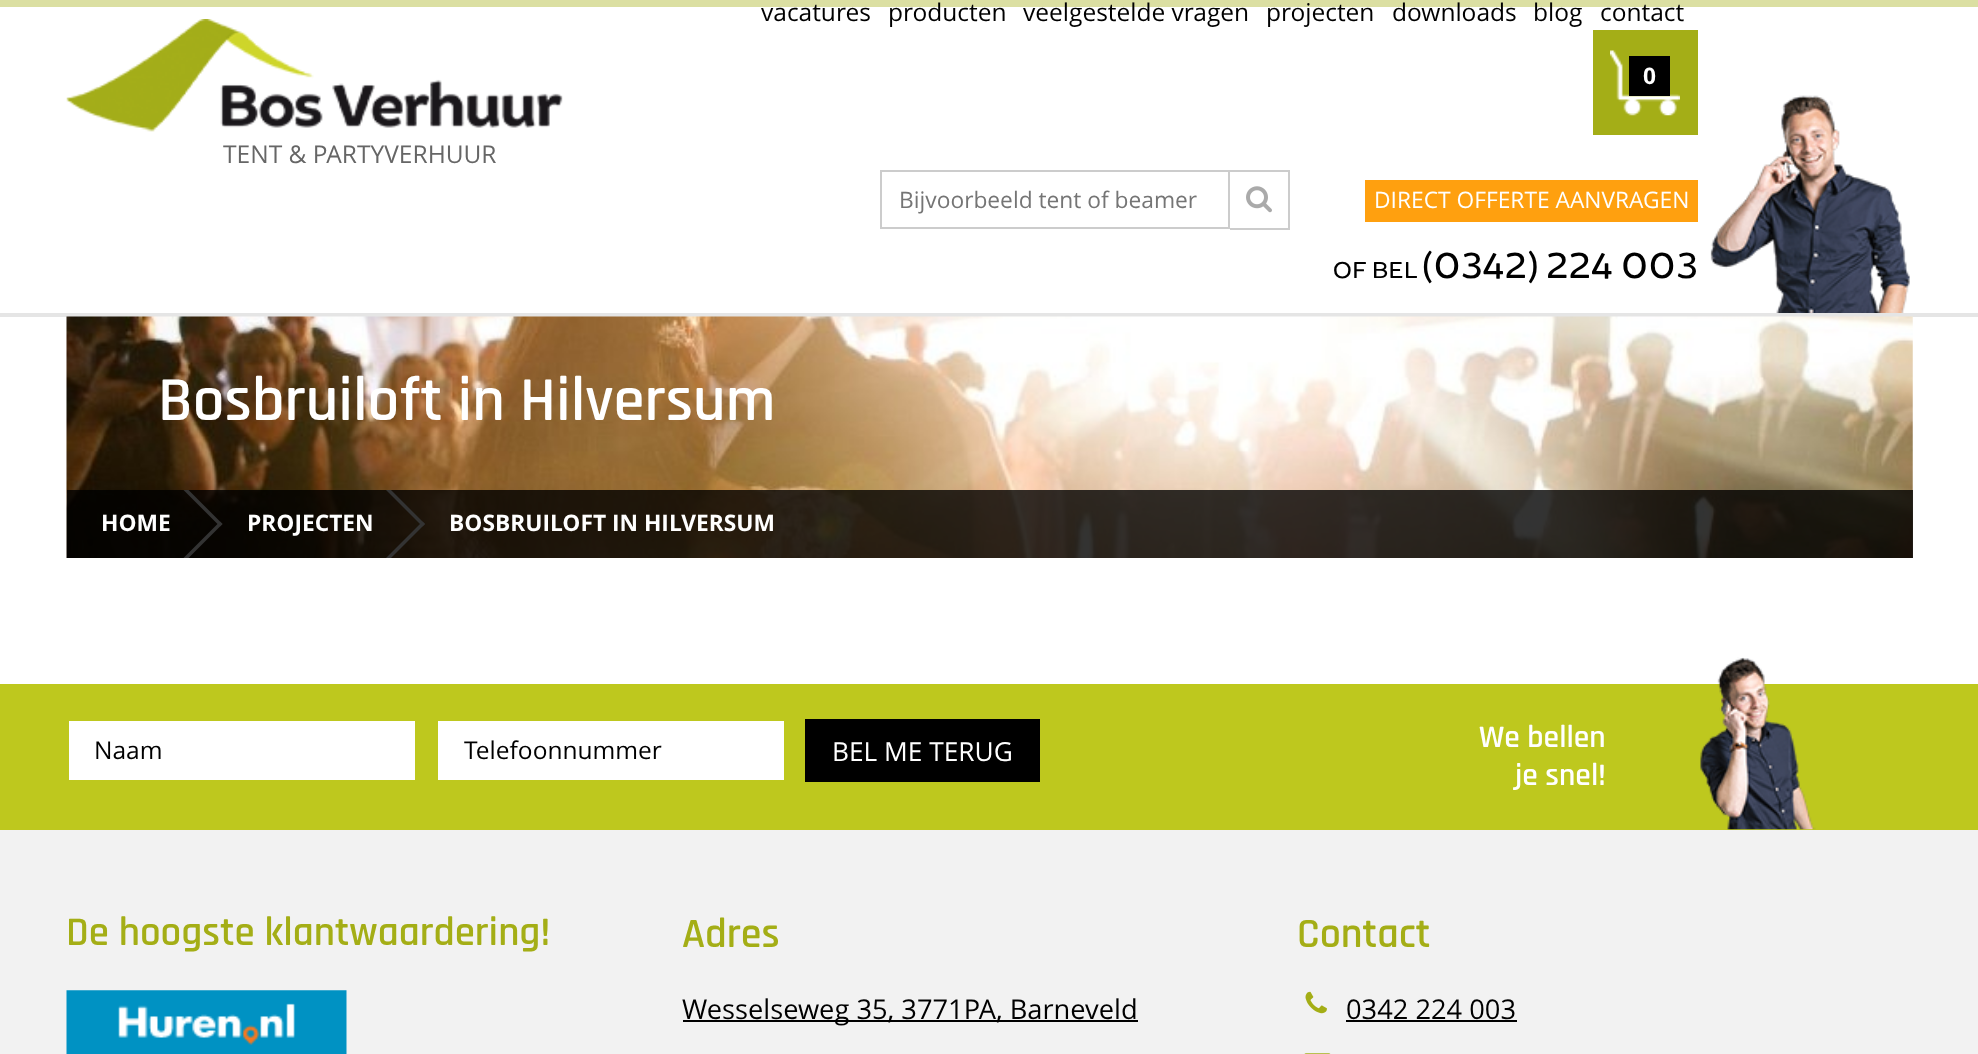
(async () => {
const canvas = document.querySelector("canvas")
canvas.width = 1978
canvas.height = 1054
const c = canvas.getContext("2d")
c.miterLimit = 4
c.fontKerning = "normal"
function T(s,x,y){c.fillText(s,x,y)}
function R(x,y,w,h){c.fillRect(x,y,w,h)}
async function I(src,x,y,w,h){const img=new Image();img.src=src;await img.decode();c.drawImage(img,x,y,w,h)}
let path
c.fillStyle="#fff"
R(0,0,1978,1054)
c.fillStyle="#dbdfa2"
R(0,0,1978,7)
c.fillStyle="#e5e5e5"
R(0,313,1978,4)
await I("1.png",66,19,497,113)
c.font="24.5px Open Sans"
c.fillStyle="#666"
T("TENT & PARTYVERHUUR",223,163)
c.fillStyle="#000"
T("vacatures",761,21)
T("producten",888,21)
T("veelgestelde vragen",1023,21)
T("projecten",1266,21)
T("downloads",1392,21)
T("blog",1533,21)
T("contact",1600,21)
c.fillStyle="#a4ae17"
R(1593,30,105,105)
await I("2.png",1610,50,70,66)
c.fillStyle="#000"
R(1629,56,41,40)
c.font="bold 22.75px Open Sans"
c.fillStyle="#fff"
T("0",1643,84)
c.strokeStyle="#ccc"
c.lineWidth=2
c.strokeRect(881,171,348,57)
c.font="22.75px Open Sans"
c.fillStyle="#757575"
T("Bijvoorbeeld tent of beamer",899,208)
c.fillStyle="#ccc"
R(1230,170,60,2)
R(1288,170,2,59)
R(1230,228,60,2)
await I("3.png",1246,186,26,27)
c.fillStyle="#ffa00f"
R(1365,180,333,42)
c.fillStyle="#fff"
T("DIRECT OFFERTE AANVRAGEN",1374,208)
c.font="24.5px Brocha"
c.fillStyle="#000"
T("OF BEL",1333,278)
c.font="38.5px Brocha"
T("(0342) 224 003",1422,278)
await I("4.png",1710,95,200,218)
await I("5.png",66,316,1847,242)
c.font="600 63px Rajdhani"
c.fillStyle="#fff"
T("Bosbruiloft in Hilversum",158,420)
c.fillStyle="#000000cc"
R(67,490,1846,68)
c.font="bold 22.75px Open Sans"
c.fillStyle="#fff"
T("HOME",101,531)
c.save()
c.beginPath()
c.rect(67,490,1846,68)
c.clip()
c.fillStyle="#333"
path = new Path2D("M185.5 487l37 37l-2.5 2.5l-37-37z")
c.fill(path)
path = new Path2D("M220 521.5l2.5 2.5l-37 37l-2.5-2.5z")
c.fill(path)
c.restore()
T("PROJECTEN",247,531)
c.save()
c.beginPath()
c.rect(67,490,1846,68)
c.clip()
c.fillStyle="#333"
path = new Path2D("M388 487l37 37l-2.5 2.5l-37-37z")
c.fill(path)
path = new Path2D("M422.5 521.5l2.5 2.5l-37 37l-2.5-2.5z")
c.fill(path)
c.restore()
T("BOSBRUILOFT IN HILVERSUM",449,531)
c.fillStyle="#bec81e"
R(0,684,1978,146)
c.fillStyle="#fff"
R(69,721,346,59)
c.font="24.5px Open Sans"
c.fillStyle="#000"
T("Naam",94,759)
c.fillStyle="#fff"
R(438,721,346,59)
c.fillStyle="#000"
T("Telefoonnummer",464,759)
R(805,719,235,63)
c.font="26.25px Open Sans"
c.fillStyle="#fff"
T("BEL ME TERUG",832,761)
c.font="600 31.5px Rajdhani"
T("We bellen",1479,747)
T("je snel!",1515,785)
await I("6.png",1700,657,116,173)
c.fillStyle="#f2f2f2"
R(0,830,1978,224)
c.font="600 41px Rajdhani"
c.fillStyle="#a4ae16"
T("De hoogste klantwaardering!",66,945)
await I("7.png",66,990,281,64)
c.font="600 42px Rajdhani"
T("Adres",682,947)
c.fillStyle="#000"
R(683,1020,455,2)
c.font="27.25px Open Sans"
T("Wesselseweg 35, 3771PA, Barneveld",682,1019)
c.font="600 42px Rajdhani"
c.fillStyle="#a4ae16"
T("Contact",1297,947)
await I("8.png",1305,991,22,23)
c.font="27.25px Open Sans"
c.fillStyle="#000"
T("0342 224 003",1346,1019)
R(1346,1020,171,2)
await I("9.png",1304,1053,27,1)
})()
